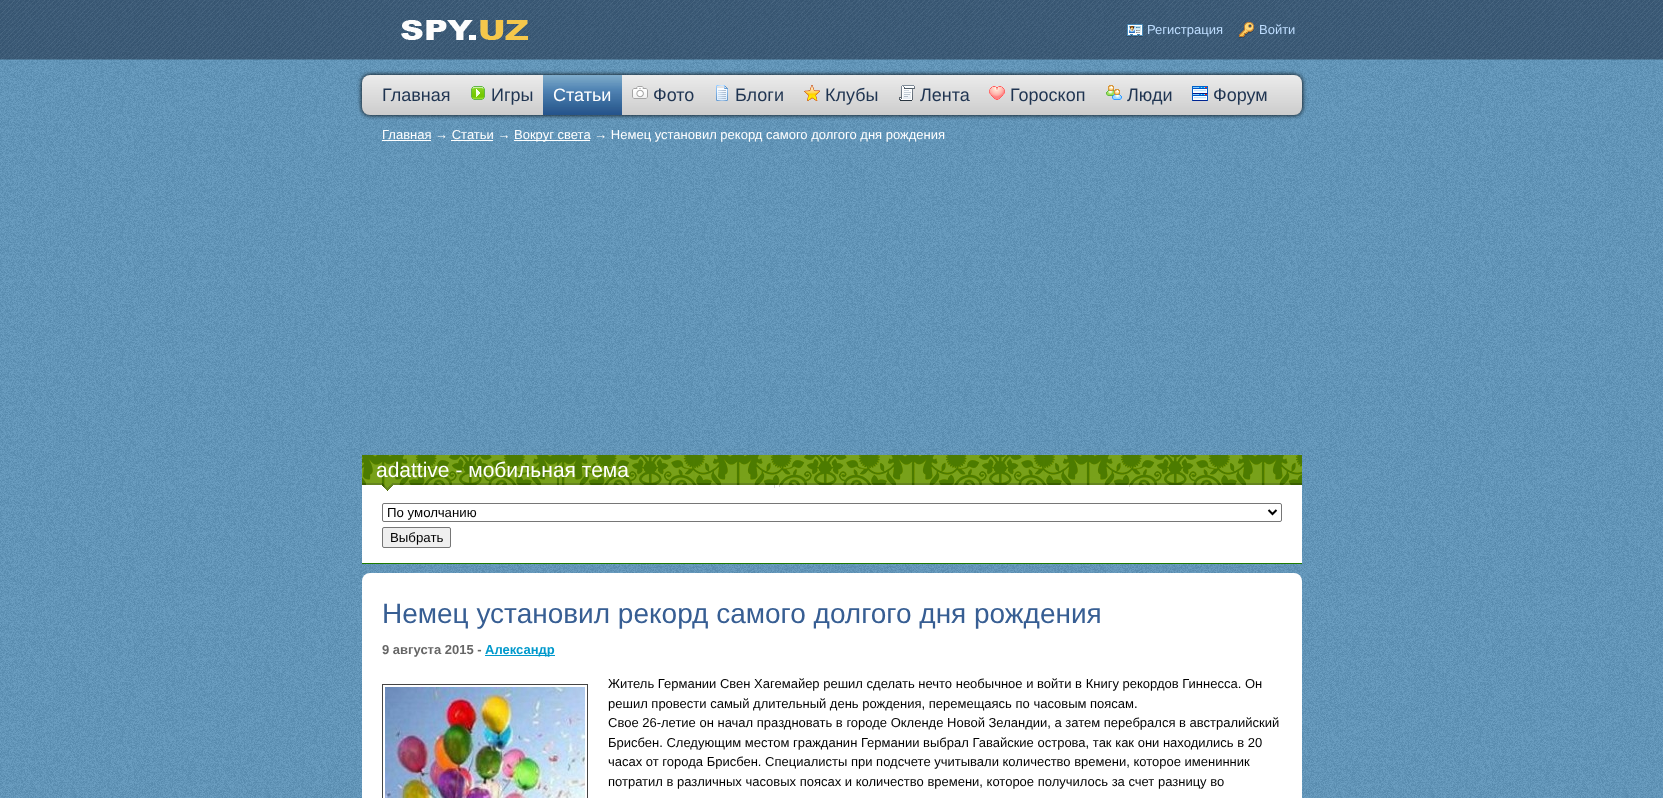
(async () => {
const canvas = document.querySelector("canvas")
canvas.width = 1663
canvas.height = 798
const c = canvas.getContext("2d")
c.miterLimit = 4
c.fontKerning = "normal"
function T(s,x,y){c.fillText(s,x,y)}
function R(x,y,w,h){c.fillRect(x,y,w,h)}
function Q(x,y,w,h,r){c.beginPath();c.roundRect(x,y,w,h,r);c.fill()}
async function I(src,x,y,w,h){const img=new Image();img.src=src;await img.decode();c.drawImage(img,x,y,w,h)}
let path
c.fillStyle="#fff"
R(0,0,1663,798)
await I("1.png",0,0,1663,798)
await I("2.png",0,0,1663,60)
await I("3.png",401,20,127,20)
await I("4.png",1127,24,16,13)
c.font="13px Liberation Sans"
c.fillStyle="#bfdeff"
T("Регистрация",1147,34)
await I("5.png",1239,22,15,16)
T("Войти",1259,34)
c.fillStyle="#000"
c.filter="blur(2.5px)"
c.beginPath()
c.roundRect(362,75,940,40,8)
c.fill()
c.filter="none"
await I("6.png",362,75,940,40)
c.font="18px Liberation Sans"
c.fillStyle="#1f3451"
T("Главная",382,101)
await I("7.png",471,86,14,14)
T("Игры",491,101)
await I("8.png",543,75,79,40)
c.fillStyle="#fff"
T("Статьи",553,101)
await I("9.png",632,86,16,13)
c.fillStyle="#1f3451"
T("Фото",653,101)
await I("10.png",716,85,12,16)
T("Блоги",735,101)
await I("11.png",804,85,16,16)
T("Клубы",825,101)
await I("12.png",899,85,16,16)
T("Лента",920,101)
await I("13.png",989,86,16,14)
T("Гороскоп",1010,101)
await I("14.png",1106,85,16,15)
T("Люди",1127,101)
await I("15.png",1192,86,16,15)
T("Форум",1213,101)
c.font="13px Liberation Sans"
c.fillStyle="#fff"
T("Главная → Статьи →",382,139)
R(382,140,49,1)
R(514,140,76,1)
T("Вокруг света → Немец установил рекорд самого долгого дня рождения",514,139)
R(451,140,42,1)
c.fillStyle="#1d7b00"
R(362,563,940,1)
c.fillStyle="#fff"
R(362,485,940,78)
await I("16.png",362,455,940,36)
c.font="21px Liberation Sans"
T("adattive - мобильная тема",376,477)
c.beginPath()
c.roundRect(382.5,503.5,899,18,1.5)
c.strokeStyle="#767676"
c.stroke()
path = new Path2D("M1268.5 510l4 4l4-4")
c.strokeStyle="#000"
c.lineWidth=2
c.stroke(path)
c.font="13.25px Liberation Sans"
c.fillStyle="#000"
T("По умолчанию",387,517)
c.fillStyle="#efefef"
c.beginPath()
c.roundRect(382.5,527.5,68,20,1.5)
c.fill()
c.strokeStyle="#767676"
c.lineWidth=1
c.stroke()
c.fillStyle="#000"
T("Выбрать",390,542)
c.fillStyle="#fff"
Q(362,573,940,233,8)
c.font="28px Liberation Sans"
c.fillStyle="#375e93"
T("Немец установил рекорд самого долгого дня рождения",382,623)
c.font="bold 13px Liberation Sans"
c.fillStyle="#666"
T("9 августа 2015 -",382,654)
c.fillStyle="#09c"
R(485,655,70,1)
T("Александр",485,654)
c.strokeStyle="#444"
c.strokeRect(382.5,684.5,205,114)
await I("17.png",385,687,200,111)
c.font="13px Liberation Sans"
c.fillStyle="#000"
T("Житель Германии Свен Хагемайер решил сделать нечто необычное и войти в Книгу рекордов Гиннесса. Он",608,688)
T("решил провести самый длительный день рождения, перемещаясь по часовым поясам.",608,708)
T("Свое 26-летие он начал праздновать в городе Окленде Новой Зеландии, а затем перебрался в австралийский",608,727)
T("Брисбен. Следующим местом гражданин Германии выбрал Гавайские острова, так как они находились в 20",608,747)
T("часах от города Брисбен. Специалисты при подсчете учитывали количество времени, которое именинник",608,766)
T("потратил в различных часовых поясах и количество времени, которое получилось за счет разницу во",608,786)
})()
